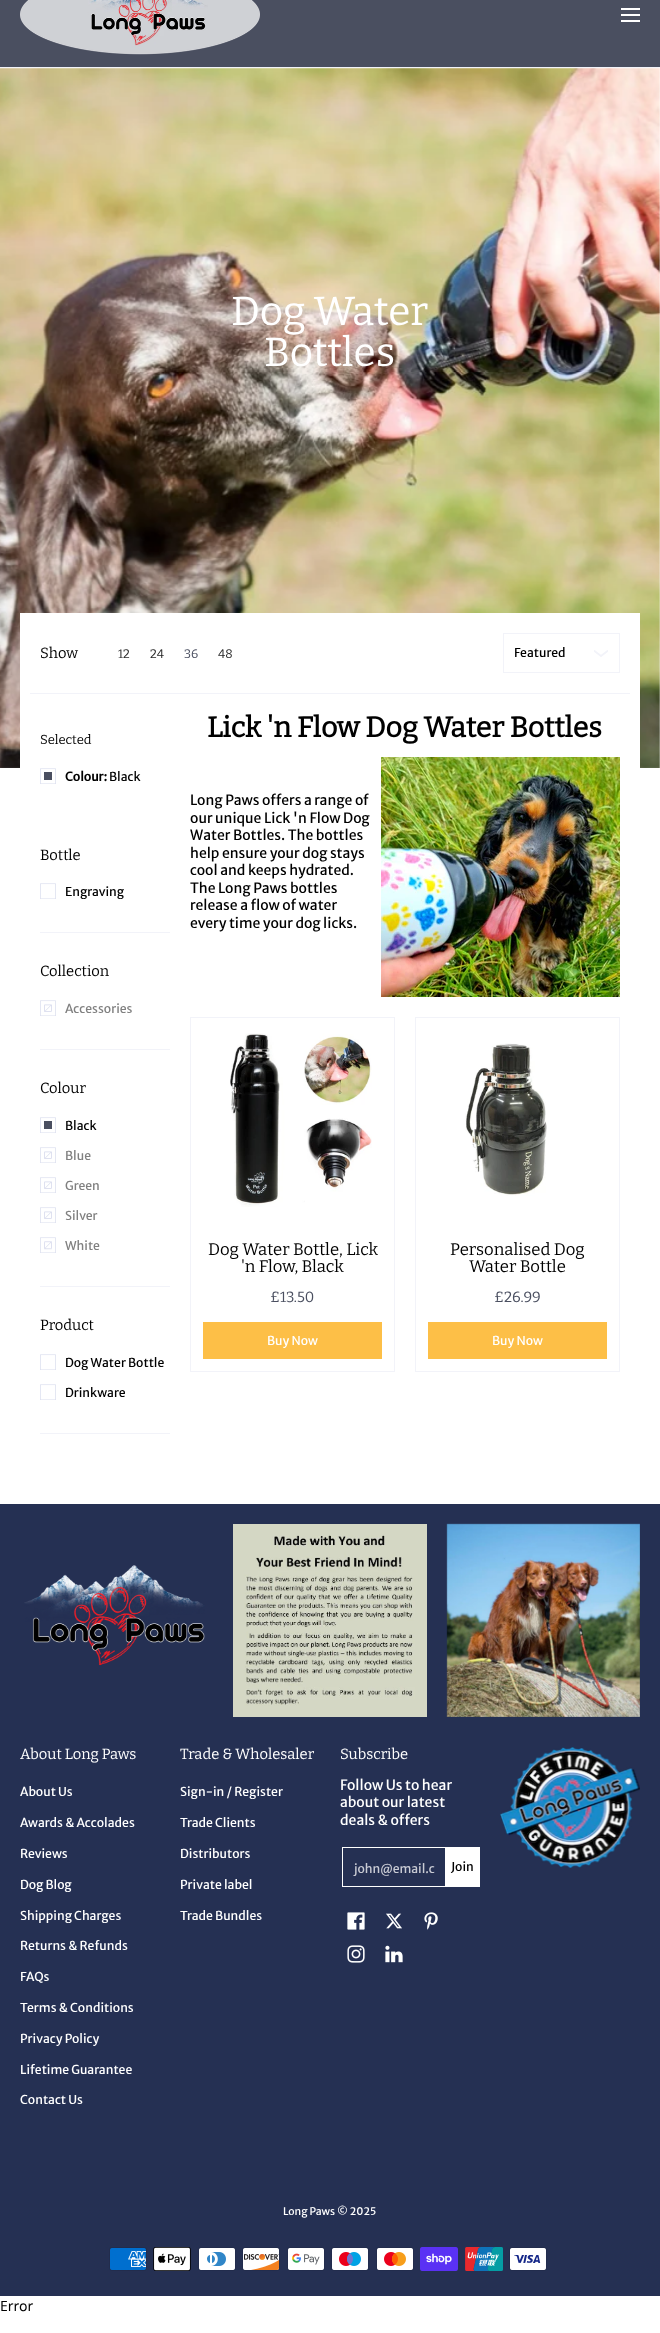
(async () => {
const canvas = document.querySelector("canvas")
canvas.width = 660
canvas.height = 2333
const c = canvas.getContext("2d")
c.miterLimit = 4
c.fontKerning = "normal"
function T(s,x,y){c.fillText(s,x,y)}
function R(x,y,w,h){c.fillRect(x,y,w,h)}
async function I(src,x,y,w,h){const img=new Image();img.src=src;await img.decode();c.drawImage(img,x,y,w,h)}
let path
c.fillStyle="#fff"
R(0,0,660,2333)
c.fillStyle="#4a4f60"
R(0,0,660,67)
c.fillStyle="#f2f3f9"
R(0,67,660,1)
await I("1.png",20,0,240,55)
c.fillStyle="#fff"
R(621,8,19,2)
R(621,20,19,2)
R(621,14,19,2)
await I("2.png",0,68,660,700)
c.font="40.5px Bitter"
T("Dog Water",231,325)
T("Bottles",264,366)
R(20,613,620,155)
c.fillStyle="#f2f3f9"
R(30,693,600,1)
c.font="14.75px Bitter"
c.fillStyle="#000"
T("Show",40,658)
c.font="12.25px Bitter"
c.fillStyle="#262626"
T("12",118,658)
T("24",150,658)
c.fillStyle="#4a4f60"
T("36",184,658)
c.fillStyle="#262626"
T("48",218,658)
c.strokeStyle="#f2f3f9"
c.strokeRect(503.5,633.5,116,39)
c.font="12.25px Merriweather Sans"
c.fillStyle="#000"
T("Featured",514,657)
c.save()
c.beginPath()
c.rect(594,646,14,14)
c.clip()
path = new Path2D("M594.5 651l6.5 5l6.5-5")
c.lineWidth=1.8
c.lineCap="round"
c.lineJoin="round"
c.stroke(path)
c.restore()
c.font="13px Bitter"
T("Selected",40,744)
await I("3.png",40,768,16,16)
c.font="bold 12.25px Merriweather Sans"
T("Colour:",65,781)
c.font="12.25px Merriweather Sans"
T("Black",109,781)
c.fillStyle="#4a4f60"
R(44,772,8,8)
c.fillStyle="#f2f3f9"
R(40,932,130,1)
c.font="14.75px Bitter"
c.fillStyle="#000"
T("Bottle",40,860)
await I("3.png",40,883,16,16)
c.font="12.25px Merriweather Sans"
T("Engraving",65,896)
c.fillStyle="#f2f3f9"
R(40,1049,130,1)
c.font="14.75px Bitter"
c.fillStyle="#000"
T("Collection",40,976)
await I("3.png",40,1000,16,16)
c.font="12.25px Merriweather Sans"
c.fillStyle="#808080"
T("Accessories",65,1013)
await I("4.png",44,1004,8,8)
c.fillStyle="#f2f3f9"
R(40,1286,130,1)
c.font="14.75px Bitter"
c.fillStyle="#000"
T("Colour",40,1093)
await I("3.png",40,1117,16,16)
c.font="12.25px Merriweather Sans"
T("Black",65,1130)
c.fillStyle="#4a4f60"
R(44,1121,8,8)
await I("3.png",40,1147,16,16)
c.fillStyle="#808080"
T("Blue",65,1160)
await I("4.png",44,1151,8,8)
await I("3.png",40,1177,16,16)
T("Green",65,1190)
await I("4.png",44,1181,8,8)
await I("3.png",40,1207,16,16)
T("Silver",65,1220)
await I("4.png",44,1211,8,8)
await I("3.png",40,1237,16,16)
T("White",65,1250)
await I("5.png",44,1241,8,9)
c.fillStyle="#f2f3f9"
R(40,1433,130,1)
c.font="14.75px Bitter"
c.fillStyle="#000"
T("Product",40,1330)
await I("3.png",40,1354,16,16)
c.font="12.25px Merriweather Sans"
T("Dog Water Bottle",65,1367)
await I("3.png",40,1384,16,16)
T("Drinkware",65,1397)
c.font="bold 28.5px Bitter"
T("Lick 'n Flow Dog Water Bottles",207,737)
c.font="14px Merriweather Sans"
T("Long Paws offers a range of",190,805)
T("our unique Lick 'n Flow Dog",190,823)
T("Water Bottles. The bottles",190,840)
T("help ensure your dog stays",190,858)
T("cool and keeps hydrated.",190,875)
T("The Long Paws bottles",190,893)
T("release a flow of water",190,910)
T("every time your dog licks.",190,928)
await I("6.png",381,757,239,240)
c.strokeRect(190.5,1017.5,204,354)
await I("7.png",230,1033,142,174)
c.font="16.75px Bitter"
T("Dog Water Bottle, Lick",208,1255)
T("'n Flow, Black",241,1272)
c.font="14.75px Bitter"
c.fillStyle="#4a4f60"
T("£13.50",270,1302)
c.fillStyle="#fdbf47"
R(203,1322,179,37)
c.font="12.25px Merriweather Sans"
c.fillStyle="#fff"
T("Buy Now",267,1345)
c.strokeRect(415.5,1017.5,204,354)
await I("8.png",465,1043,82,153)
c.font="16.75px Bitter"
c.fillStyle="#000"
T("Personalised Dog",450,1255)
T("Water Bottle",469,1272)
c.font="14.75px Bitter"
c.fillStyle="#4a4f60"
T("£26.99",494,1302)
c.fillStyle="#fdbf47"
R(428,1322,179,37)
c.font="12.25px Merriweather Sans"
c.fillStyle="#fff"
T("Buy Now",492,1345)
c.fillStyle="#253053"
R(0,1504,660,792)
await I("9.png",24,1565,181,101)
await I("10.png",233,1524,194,193)
await I("11.png",446,1523,194,194)
c.font="14.75px Bitter"
c.fillStyle="#fff"
T("About Long Paws",20,1759)
c.font="12.25px Merriweather Sans"
T("About Us",20,1796)
T("Awards & Accolades",20,1827)
T("Reviews",20,1858)
T("Dog Blog",20,1889)
T("Shipping Charges",20,1920)
T("Returns & Refunds",20,1950)
T("FAQs",20,1981)
T("Terms & Conditions",20,2012)
T("Privacy Policy",20,2043)
T("Lifetime Guarantee",20,2074)
T("Contact Us",20,2104)
c.font="14.75px Bitter"
T("Trade & Wholesaler",180,1759)
c.font="12.25px Merriweather Sans"
T("Sign-in / Register",180,1796)
T("Trade Clients",180,1827)
T("Distributors",180,1858)
T("Private label",180,1889)
T("Trade Bundles",180,1920)
c.font="14.75px Bitter"
T("Subscribe",340,1759)
c.font="14px Merriweather Sans"
T("Follow Us to hear",340,1790)
T("about our latest",340,1807)
T("deals & offers",340,1825)
c.strokeStyle="#fff"
c.strokeRect(342.5,1847.5,104,39)
c.font="12.25px Merriweather Sans"
c.fillStyle="#c9cbd4"
T("john@email.c",354,1873)
c.fillStyle="#fff"
R(445,1847,35,40)
c.fillStyle="#000"
T("Join",451,1871)
await I("12.png",347,1912,18,18)
await I("13.png",386,1913,16,16)
await I("14.png",424,1912,14,18)
await I("15.png",347,1945,18,18)
await I("16.png",385,1945,18,18)
await I("17.png",500,1747,140,121)
c.font="10.5px Merriweather Sans"
c.fillStyle="#fff"
T("Long Paws © 2025",283,2215)
await I("18.png",109,2247,38,24)
await I("19.png",153,2247,38,24)
await I("20.png",198,2247,38,24)
await I("21.png",242,2247,38,24)
await I("22.png",287,2247,38,24)
await I("23.png",331,2247,38,24)
await I("24.png",376,2247,38,24)
await I("25.png",420,2247,38,24)
await I("26.png",465,2247,38,24)
await I("27.png",509,2247,38,24)
c.font="14px Noto Sans"
c.fillStyle="#000"
T("Error",0,2311)
})()
